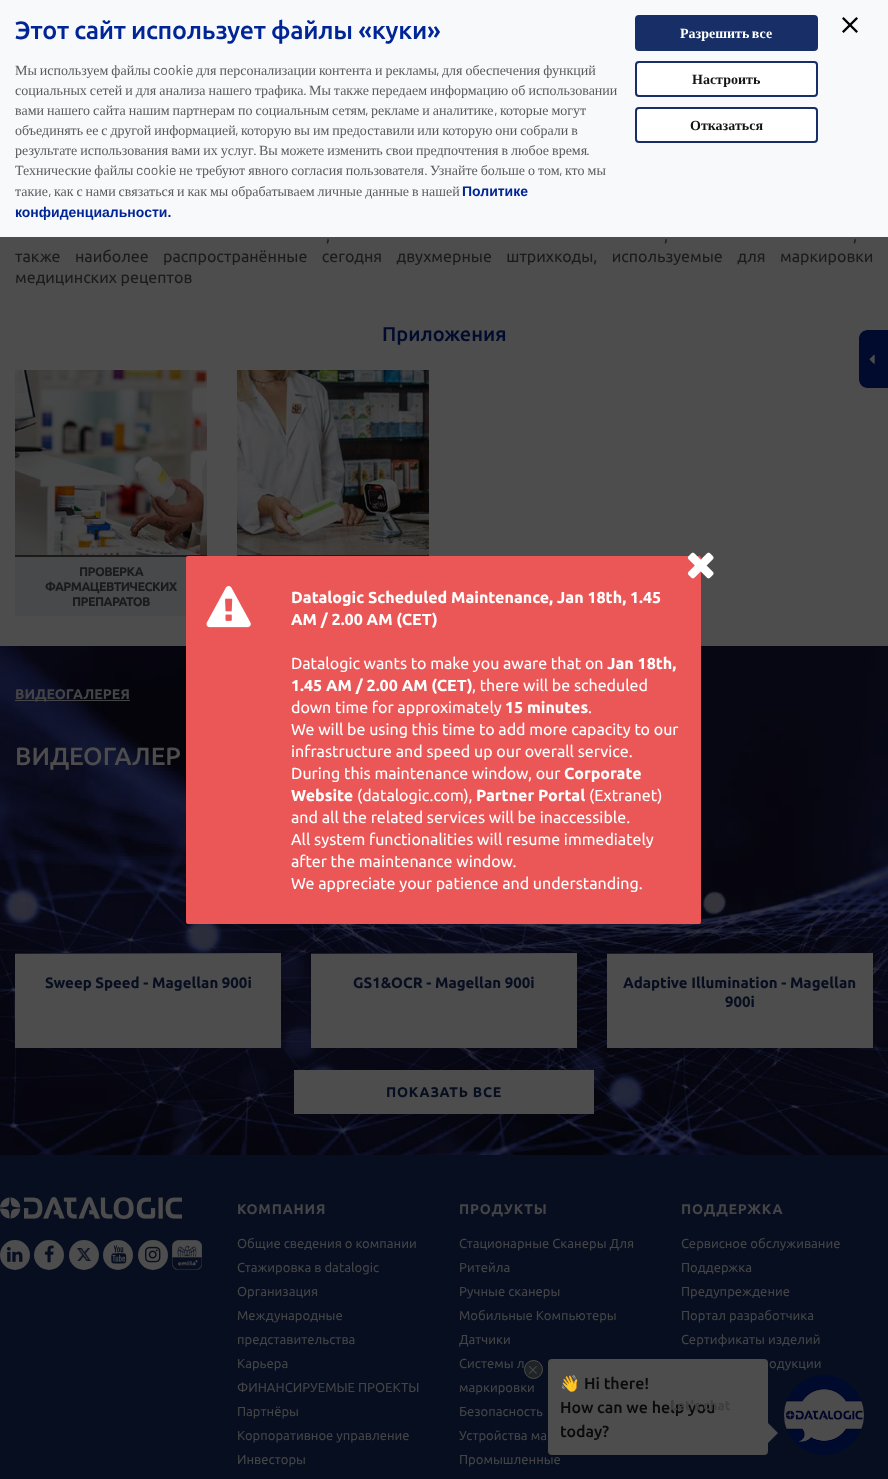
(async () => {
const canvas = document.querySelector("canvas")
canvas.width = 888
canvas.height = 1479
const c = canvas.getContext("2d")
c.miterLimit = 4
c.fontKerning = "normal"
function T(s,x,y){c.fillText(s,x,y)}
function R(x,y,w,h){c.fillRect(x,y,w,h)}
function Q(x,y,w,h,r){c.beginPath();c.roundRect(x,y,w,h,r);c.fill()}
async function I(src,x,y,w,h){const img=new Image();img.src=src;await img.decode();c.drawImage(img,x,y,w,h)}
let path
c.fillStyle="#4d4d4d"
R(0,0,888,1479)
c.fillStyle="#f8f9fb"
R(0,0,888,237)
c.letterSpacing="-0.3px"
c.font="500 25px Ubuntu"
c.fillStyle="#002596"
T("Этот сайт использует файлы «куки»",15,39)
c.letterSpacing="0px"
c.wordSpacing="-0.5px"
c.font="14px Liberation Serif"
c.fillStyle="#5a5b5e"
T("Мы используем файлы",15,75)
c.wordSpacing="0px"
c.font="14px Barlow"
T("cookie",153,75)
c.wordSpacing="-0.5px"
c.font="14px Liberation Serif"
T("для персонализации контента и рекламы",196,75)
c.wordSpacing="0px"
c.font="14px Barlow"
T(",",436,75)
c.wordSpacing="-0.5px"
c.font="14px Liberation Serif"
T("для обеспечения функций",442,75)
T("социальных сетей и для анализа нашего трафика",15,95)
c.wordSpacing="0px"
c.font="14px Barlow"
T(".",303,95)
c.wordSpacing="-0.5px"
c.font="14px Liberation Serif"
T("Мы также передаем информацию об использовании",309,95)
T("вами нашего сайта нашим партнерам по социальным сетям",15,115)
c.wordSpacing="0px"
c.font="14px Barlow"
T(",",365,115)
c.wordSpacing="-0.5px"
c.font="14px Liberation Serif"
T("рекламе и аналитике",371,115)
c.wordSpacing="0px"
c.font="14px Barlow"
T(",",494,115)
c.wordSpacing="-0.5px"
c.font="14px Liberation Serif"
T("которые могут",500,115)
c.wordSpacing="-0.6px"
T("объединять ее с другой информацией",15,135)
c.wordSpacing="0px"
c.font="14px Barlow"
T(",",235,135)
c.wordSpacing="-0.6px"
c.font="14px Liberation Serif"
T("которую вы им предоставили или которую они собрали в",241,135)
c.wordSpacing="-0.5px"
T("результате использования вами их услуг",15,155)
c.wordSpacing="0px"
c.font="14px Barlow"
T(".",253,155)
c.wordSpacing="-0.5px"
c.font="14px Liberation Serif"
T("Вы можете изменить свои предпочтения в любое время",259,155)
c.wordSpacing="0px"
c.font="14px Barlow"
T(".",586,155)
c.wordSpacing="-0.5px"
c.font="14px Liberation Serif"
T("Технические файлы",15,175)
c.wordSpacing="0px"
c.font="14px Barlow"
T("cookie",136,175)
c.wordSpacing="-0.5px"
c.font="14px Liberation Serif"
T("не требуют явного согласия пользователя",179,175)
c.wordSpacing="0px"
c.font="14px Barlow"
T(".",424,175)
c.wordSpacing="-0.5px"
c.font="14px Liberation Serif"
T("Узнайте больше о том",430,175)
c.wordSpacing="0px"
c.font="14px Barlow"
T(",",559,175)
c.wordSpacing="-0.5px"
c.font="14px Liberation Serif"
T("кто мы",565,175)
c.wordSpacing="0px"
T("такие",15,196)
c.font="14px Barlow"
T(",",48,196)
c.wordSpacing="-0.6px"
c.font="14px Liberation Serif"
T("как с нами связаться и как мы обрабатываем личные данные в нашей",54,196)
c.wordSpacing="0px"
c.font="bold 14px Liberation Sans"
c.fillStyle="#002596"
T("Политике",462,196)
T("конфиденциальности.",15,217)
c.fillStyle="#172f66"
c.beginPath()
c.roundRect(636,16,181,34,3)
c.fill()
c.strokeStyle="#172f66"
c.lineWidth=2
c.stroke()
c.wordSpacing="-1px"
c.font="bold 14px Liberation Serif"
c.fillStyle="#fff"
T("Разрешить все",680,38)
c.beginPath()
c.roundRect(636,62,181,34,3)
c.fill()
c.stroke()
c.wordSpacing="0px"
c.fillStyle="#141414"
T("Настроить",692,84)
c.fillStyle="#fff"
c.beginPath()
c.roundRect(636,108,181,34,3)
c.fill()
c.stroke()
c.fillStyle="#141414"
T("Отказаться",690,130)
await I("1.png",842,17,16,16)
c.wordSpacing="4px"
c.font="16px Ubuntu"
c.fillStyle="#1b1b1c"
T(",",326,241)
T(",",664,241)
T(",",853,241)
c.wordSpacing="10.75px"
T("также наиболее распространённые сегодня двухмерные штрихкоды, используемые для маркировки",15,262)
c.wordSpacing="0px"
T("медицинских рецептов",15,283)
c.font="500 20px Ubuntu"
c.fillStyle="#000b2d"
T("Приложения",382,341)
c.fillStyle="#1b1b1c"
R(237,555,192,1)
await I("2.png",237,370,192,185)
c.fillStyle="#48494a"
R(15,557,172,59)
c.fillStyle="#1b1b1c"
R(15,555,192,1)
await I("3.png",15,370,192,185)
R(15,556,173,1)
c.letterSpacing="-0.6px"
c.font="bold 12.5px Ubuntu"
T("ПРОВЕРКА",79,576)
T("ФАРМАЦЕВТИЧЕСКИХ",45,591)
T("ПРЕПАРАТОВ",72,606)
await I("4.png",0,646,888,509)
c.fillStyle="#4d4d4dde"
R(15,700,115,1)
c.letterSpacing="0px"
c.font="bold 14px Ubuntu"
c.fillStyle="#444447"
T("ВИДЕОГАЛЕРЕЯ",15,699)
c.font="500 25px Ubuntu"
c.fillStyle="#4d4d4d"
T("ВИДЕОГАЛЕР",15,765)
R(15,953,266,95)
await I("5.png",15,953,263,1)
c.font="bold 15px Ubuntu"
c.fillStyle="#070e1f"
T("Sweep Speed - Magellan 900i",45,988)
c.fillStyle="#4d4d4d"
R(311,953,266,95)
await I("6.png",311,953,264,1)
c.fillStyle="#070e1f"
T("GS1&OCR - Magellan 900i",353,988)
c.fillStyle="#4d4d4d"
R(607,953,266,95)
await I("6.png",607,953,264,1)
c.fillStyle="#070e1f"
T("Adaptive Illumination - Magellan",623,988)
T("900i",725,1007)
c.fillStyle="#4d4d4d"
R(294,1070,300,44)
c.letterSpacing="0.75px"
c.font="bold 14px Ubuntu"
c.fillStyle="#070e1f"
T("ПОКАЗАТЬ ВСЕ",386,1097)
c.fillStyle="#000b2d"
c.beginPath()
c.roundRect(859,330,29,58,[8,0,0,8])
c.fill()
c.fillStyle="#4d4d4d"
path = new Path2D("M867 329h21v60h-21c-5 0-9-4-9-9v-42c0-5 4-9 9-9zm0 1h21v58h-21c-4 0-8-4-8-8v-42c0-4 4-8 8-8z")
c.fill(path,"evenodd")
await I("7.png",869,354,6,10)
c.fillStyle="#070e1f"
R(0,1155,888,324)
await I("8.png",0,1197,182,22)
c.fillStyle="#4d4d4d"
c.beginPath()
c.arc(15,1255,15,0,7)
c.fill()
await I("9.png",7,1247,16,15)
c.beginPath()
c.arc(49,1255,15,0,7)
c.fill()
await I("10.png",44,1245,10,18)
c.beginPath()
c.arc(84,1255,15,0,7)
c.fill()
await I("11.png",77,1248,14,13)
c.beginPath()
c.arc(118,1255,15,0,7)
c.fill()
await I("12.png",111,1245,16,19)
c.beginPath()
c.arc(153,1255,15,0,7)
c.fill()
await I("13.png",145,1246,16,17)
await I("14.png",172,1240,30,30)
c.fillStyle="#444447"
T("КОМПАНИЯ",237,1214)
c.letterSpacing="0px"
c.font="13px Ubuntu"
T("Общие сведения о компании",237,1248)
T("Стажировка в datalogic",237,1272)
T("Oрганизация",237,1296)
T("Международные",237,1320)
T("представительства",237,1344)
T("Карьера",237,1368)
T("ФИНАНСИРУЕМЫЕ ПРОЕКТЫ",237,1392)
T("Партнёры",237,1416)
T("Корпоративное управление",237,1440)
T("Инвесторы",237,1464)
c.letterSpacing="0.75px"
c.font="bold 14px Ubuntu"
T("ПРОДУКТЫ",459,1214)
c.letterSpacing="0px"
c.font="13px Ubuntu"
T("Стационарные Сканеры Для",459,1248)
T("Ритейла",459,1272)
T("Ручные сканеры",459,1296)
T("Мобильные Компьютеры",459,1320)
T("Датчики",459,1344)
T("Системы л",459,1368)
T("маркировки",459,1392)
T("Безопасность",459,1416)
T("Устройства ма",459,1440)
T("Промышленные",459,1464)
c.letterSpacing="0.75px"
c.font="bold 14px Ubuntu"
T("ПОДДЕРЖКА",681,1214)
c.letterSpacing="0px"
c.font="13px Ubuntu"
T("Сервисное обслуживание",681,1248)
T("Поддержка",681,1272)
T("Предупреждение",681,1296)
T("Портал разработчика",681,1320)
T("Сертификаты изделий",681,1344)
T("одукции",769,1368)
c.fillStyle="#eb5757"
Q(186,556,515,368,2)
await I("15.png",687,552,27,27)
await I("16.png",206,586,45,42)
c.font="bold 16px Ubuntu"
c.fillStyle="#fff"
T("Datalogic Scheduled Maintenance, Jan 18th, 1.45",291,603)
T("AM / 2.00 AM (CET)",291,625)
c.font="16px Ubuntu"
T("Datalogic wants to make you aware that on",291,669)
c.font="bold 16px Ubuntu"
T("Jan 18th,",607,669)
T("1.45 AM / 2.00 AM (CET)",291,691)
c.font="16px Ubuntu"
T(", there will be scheduled",472,691)
T("down time for approximately",291,713)
c.font="bold 16px Ubuntu"
T("15 minutes",505,713)
c.font="16px Ubuntu"
T(".",588,713)
T("We will be using this time to add more capacity to our",291,735)
T("infrastructure and speed up our overall service.",291,757)
T("During this maintenance window, our",291,779)
c.font="bold 16px Ubuntu"
T("Corporate",564,779)
T("Website",291,801)
c.font="16px Ubuntu"
T("(datalogic.com),",357,801)
c.font="bold 16px Ubuntu"
T("Partner Portal",476,801)
c.font="16px Ubuntu"
T("(Extranet)",589,801)
T("and all the related services will be inaccessible.",291,823)
T("All system functionalities will resume immediately",291,845)
T("after the maintenance window.",291,867)
T("We appreciate your patience and understanding.",291,889)
c.fillStyle="#4d4d4d"
Q(548,1359,220,96,4)
c.fillStyle="#1f2427"
c.beginPath()
c.arc(533.5,1369.5,9,0,7)
c.fill()
c.strokeStyle="#4d4d4d"
c.lineWidth=1
c.stroke()
await I("17.png",529,1366,8,8)
c.font="16px Noto Color Emoji"
c.fillStyle="#0a0a0a"
T("👋",560,1389)
c.font="500 16px Ubuntu"
T("Hi there!",584,1389)
T("How can we help you",560,1413)
T("today?",560,1437)
c.fillStyle="#4d4d4d"
path = new Path2D("M768 1443v-20l10 10z")
c.fill(path)
await I("18.png",784,1375,80,80)
c.font="bold 13px Ubuntu"
c.fillStyle="#3e3e3e"
T("Let's chat",670,1410)
})()
